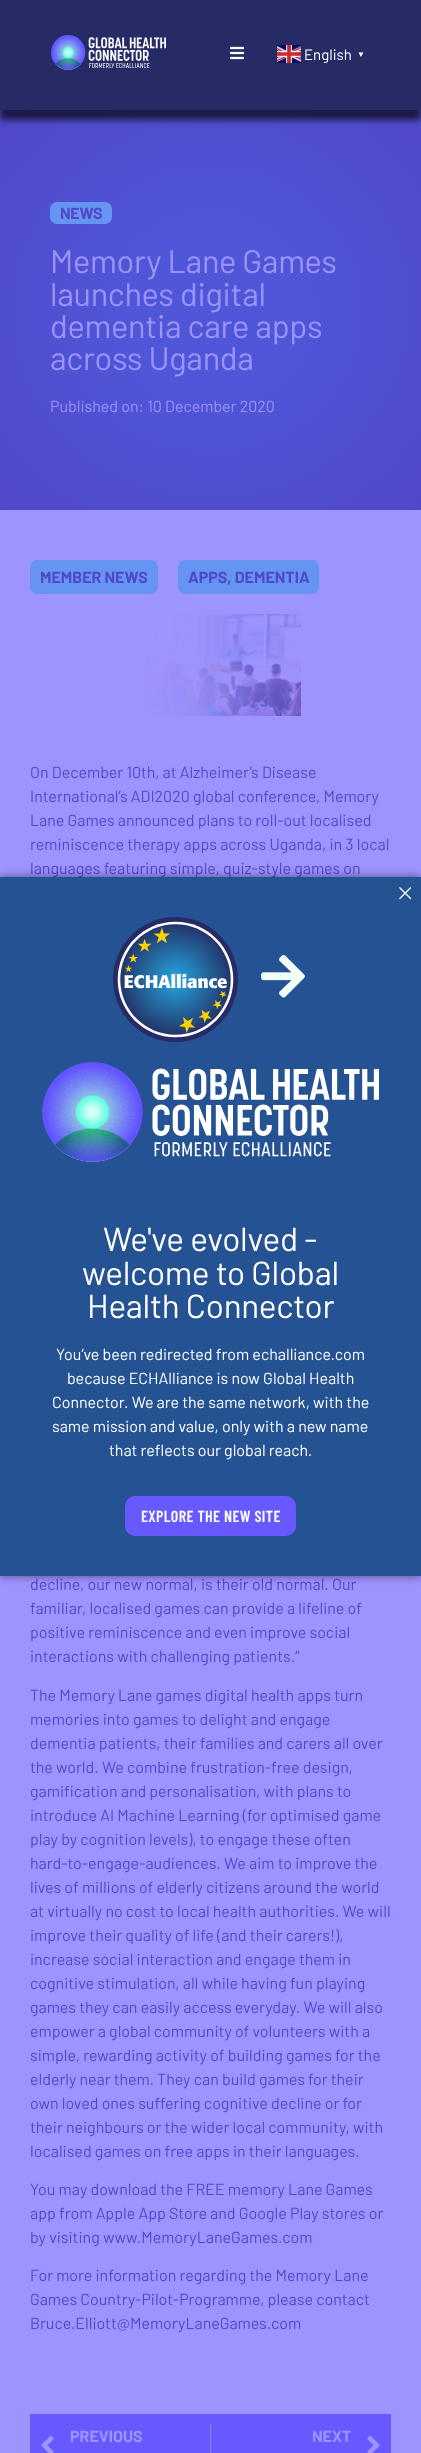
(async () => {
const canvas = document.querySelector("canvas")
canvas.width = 421
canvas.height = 2453
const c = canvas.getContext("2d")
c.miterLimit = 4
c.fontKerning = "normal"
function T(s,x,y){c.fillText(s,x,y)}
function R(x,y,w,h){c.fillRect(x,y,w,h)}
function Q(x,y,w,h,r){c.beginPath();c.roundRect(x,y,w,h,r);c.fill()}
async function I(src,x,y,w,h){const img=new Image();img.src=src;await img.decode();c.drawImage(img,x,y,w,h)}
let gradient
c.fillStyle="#9e94ff"
R(0,0,421,2453)
gradient = c.createRadialGradient(211,326.43,0,211,326.43,298)
gradient.addColorStop(.28,"#4f56d8")
gradient.addColorStop(1,"#5048c8")
c.fillStyle = gradient
c.beginPath()
c.rect(0,110,421,400)
c.save()
c.clip()
c.scale(1,283 / 298)
c.fillRect(0,0,421,2584)
c.restore()
c.fillStyle="#000000a6"
c.filter="blur(3px)"
c.beginPath()
c.rect(0,5,421,115)
c.fill()
c.filter="none"
c.fillStyle="#272b65"
R(0,0,421,110)
await I("1.png",51,35,115,35)
await I("2.png",230,46,14,14)
await I("3.png",277,45,24,18)
c.font="15px Barlow"
c.fillStyle="#fff"
T("English",304,60)
c.font="bold 8px Liberation Sans"
T("▼",357,57)
c.fillStyle="#6694f3"
Q(50,202,62,22,7)
c.letterSpacing="-0.25px"
c.font="bold 16px Barlow"
c.fillStyle="#5048c8"
T("NEWS",60,219)
c.font="32.5px Barlow"
c.fillStyle="#9e94ff"
T("Memory Lane Games",50,273)
T("launches digital",50,306)
T("dementia care apps",50,338)
T("across Uganda",50,370)
c.letterSpacing="0px"
c.font="16px Barlow"
T("Published on: 10 December 2020",50,412)
c.fillStyle="#6694f3"
Q(30,560,128,34,7)
c.font="bold 16px Barlow"
c.fillStyle="#5048c8"
T("MEMBER NEWS",40,583)
c.fillStyle="#6694f3"
Q(178,560,141,34,7)
c.fillStyle="#5048c8"
T("APPS, DEMENTIA",188,583)
await I("4.png",145,614,156,102)
c.font="16px Barlow"
T("On December 10th, at Alzheimer’s Disease",30,778)
T("International’s ADI2020 global conference, Memory",30,802)
T("Lane Games announced plans to roll-out localised",30,826)
T("reminiscence therapy apps across Uganda, in 3 local",30,850)
T("languages featuring simple, quiz-style games on",30,874)
T("decline, our new normal, is their old normal. Our",30,1590)
T("familiar, localised games can provide a lifeline of",30,1614)
T("positive reminiscence and even improve social",30,1638)
T("interactions with challenging patients.”",30,1662)
T("The Memory Lane games digital health apps turn",30,1701)
T("memories into games to delight and engage",30,1725)
T("dementia patients, their families and carers all over",30,1749)
T("the world. We combine frustration-free design,",30,1773)
T("gamification and personalisation, with plans to",30,1797)
T("introduce AI Machine Learning (for optimised game",30,1821)
T("play by cognition levels), to engage these often",30,1845)
T("hard-to-engage-audiences. We aim to improve the",30,1869)
T("lives of millions of elderly citizens around the world",30,1893)
T("at virtually no cost to local health authorities. We will",30,1917)
T("improve their quality of life (and their carers!),",30,1941)
T("increase social interaction and engage them in",30,1965)
T("cognitive stimulation, all while having fun playing",30,1989)
T("games they can easily access everyday. We will also",30,2013)
T("empower a global community of volunteers with a",30,2037)
T("simple, rewarding activity of building games for the",30,2061)
T("elderly near them. They can build games for their",30,2085)
T("own loved ones suffering cognitive decline or for",30,2109)
T("their neighbours or the wider local community, with",30,2133)
T("localised games on free apps in their languages.",30,2157)
T("You may download the FREE memory Lane Games",30,2195)
T("app from Apple App Store and Google Play stores or",30,2219)
T("by visiting www.MemoryLaneGames.com",30,2243)
T("For more information regarding the Memory Lane",30,2281)
T("Games Country-Pilot-Programme, please contact",30,2305)
T("Bruce.Elliott@MemoryLaneGames.com",30,2329)
c.fillStyle="#6758ff"
R(30,2414,361,39)
await I("5.png",41,2435,13,18)
c.font="bold 16px Barlow"
c.fillStyle="#9e94ff"
T("PREVIOUS",70,2442)
c.fillStyle="#8f86f2"
R(210,2424,1,29)
c.fillStyle="#9e94ff"
T("NEXT",312,2442)
await I("6.png",367,2435,13,18)
c.fillStyle="#00000080"
c.filter="blur(5px)"
c.beginPath()
c.rect(0,877,421,699)
c.fill()
c.filter="none"
c.fillStyle="#245293"
R(0,877,421,699)
await I("7.png",399,887,13,13)
await I("8.png",113,917,125,125)
await I("9.png",261,955,44,43)
await I("10.png",42,1062,337,100)
c.letterSpacing="-0.25px"
c.font="33.25px Barlow"
c.fillStyle="#fff"
T("We've evolved -",103,1251)
T("welcome to Global",82,1285)
T("Health Connector",87,1318)
c.letterSpacing="0px"
c.font="16px Barlow"
T("You’ve been redirected from echalliance.com",56,1360)
T("because ECHAlliance is now Global Health",67,1384)
T("Connector. We are the same network, with the",52,1408)
T("same mission and value, only with a new name",52,1432)
T("that reflects our global reach.",109,1456)
c.fillStyle="#6758ff"
Q(125,1496,171,40,10)
c.letterSpacing="0.4px"
c.font="600 16px Barlow Condensed"
c.fillStyle="#fff"
T("EXPLORE THE NEW SITE",141,1522)
})()
